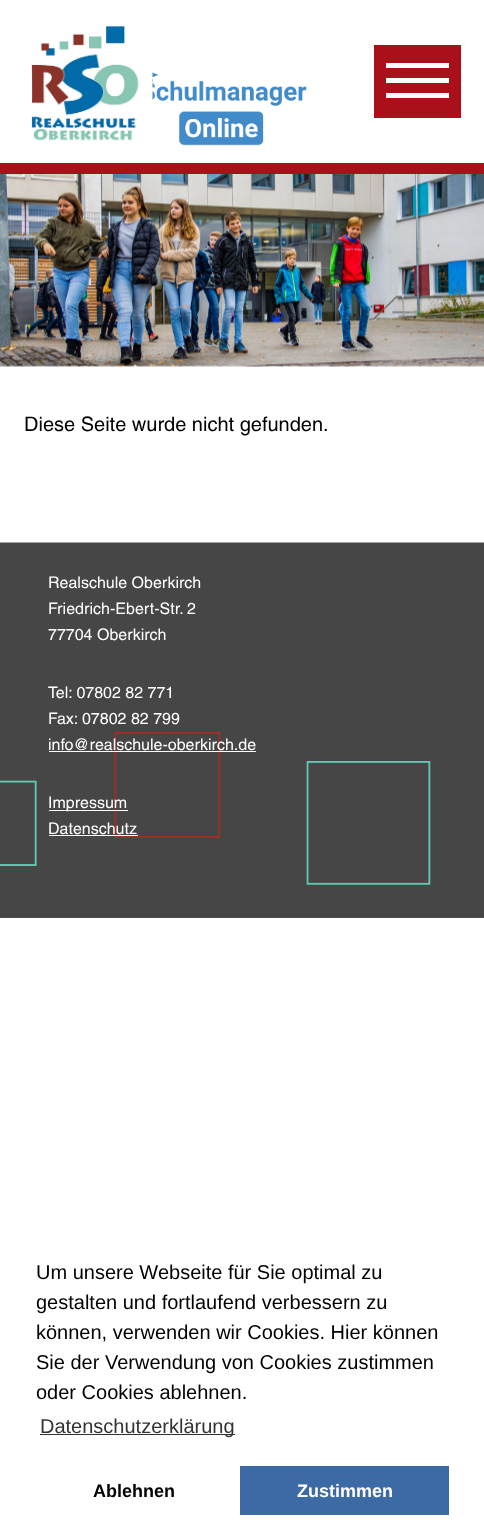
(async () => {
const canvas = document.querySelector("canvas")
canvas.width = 484
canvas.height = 1534
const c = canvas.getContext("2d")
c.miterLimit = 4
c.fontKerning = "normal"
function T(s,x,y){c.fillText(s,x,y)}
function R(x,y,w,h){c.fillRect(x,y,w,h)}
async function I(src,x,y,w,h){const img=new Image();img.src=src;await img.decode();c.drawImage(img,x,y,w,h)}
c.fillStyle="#fff"
R(0,0,484,1534)
c.fillStyle="#a91019"
R(0,163,484,11)
await I("2.png",135,69,172,77)
await I("1.png",31,26,122,115)
R(374,45,87,73)
c.fillStyle="#fff"
R(386,63,63,5)
R(386,78,63,5)
R(386,93,63,5)
await I("3.png",0,174,484,193)
c.font="20px Helvetica"
c.fillStyle="#000"
T("Diese Seite wurde nicht gefunden.",24,431)
c.fillStyle="#555"
R(0,917,484,1)
await I("4.png",0,542,484,376)
c.font="16px Helvetica"
c.fillStyle="#fff"
T("Realschule Oberkirch",48,588)
T("Friedrich-Ebert-Str. 2",48,614)
T("77704 Oberkirch",48,640)
T("Tel: 07802 82 771",48,698)
T("Fax: 07802 82 799",48,724)
T("info@realschule-oberkirch.de",48,750)
R(49,751,207,1)
R(49,810,79,1)
T("Impressum",48,808)
T("Datenschutz",48,834)
R(49,835,89,1)
c.font="20px Liberation Sans"
c.fillStyle="#000"
T("Um unsere Webseite für Sie optimal zu",36,1279)
T("gestalten und fortlaufend verbessern zu",36,1309)
T("können, verwenden wir Cookies. Hier können",36,1339)
T("Sie der Verwendung von Cookies zustimmen",36,1369)
T("oder Cookies ablehnen.",36,1399)
c.fillStyle="#333"
R(40,1434,195,1)
T("Datenschutzerklärung",40,1433)
c.font="bold 18px Liberation Sans"
c.fillStyle="#000"
T("Ablehnen",93,1497)
c.fillStyle="#3c6aa5"
R(240,1466,209,49)
c.fillStyle="#fff"
T("Zustimmen",297,1497)
})()
